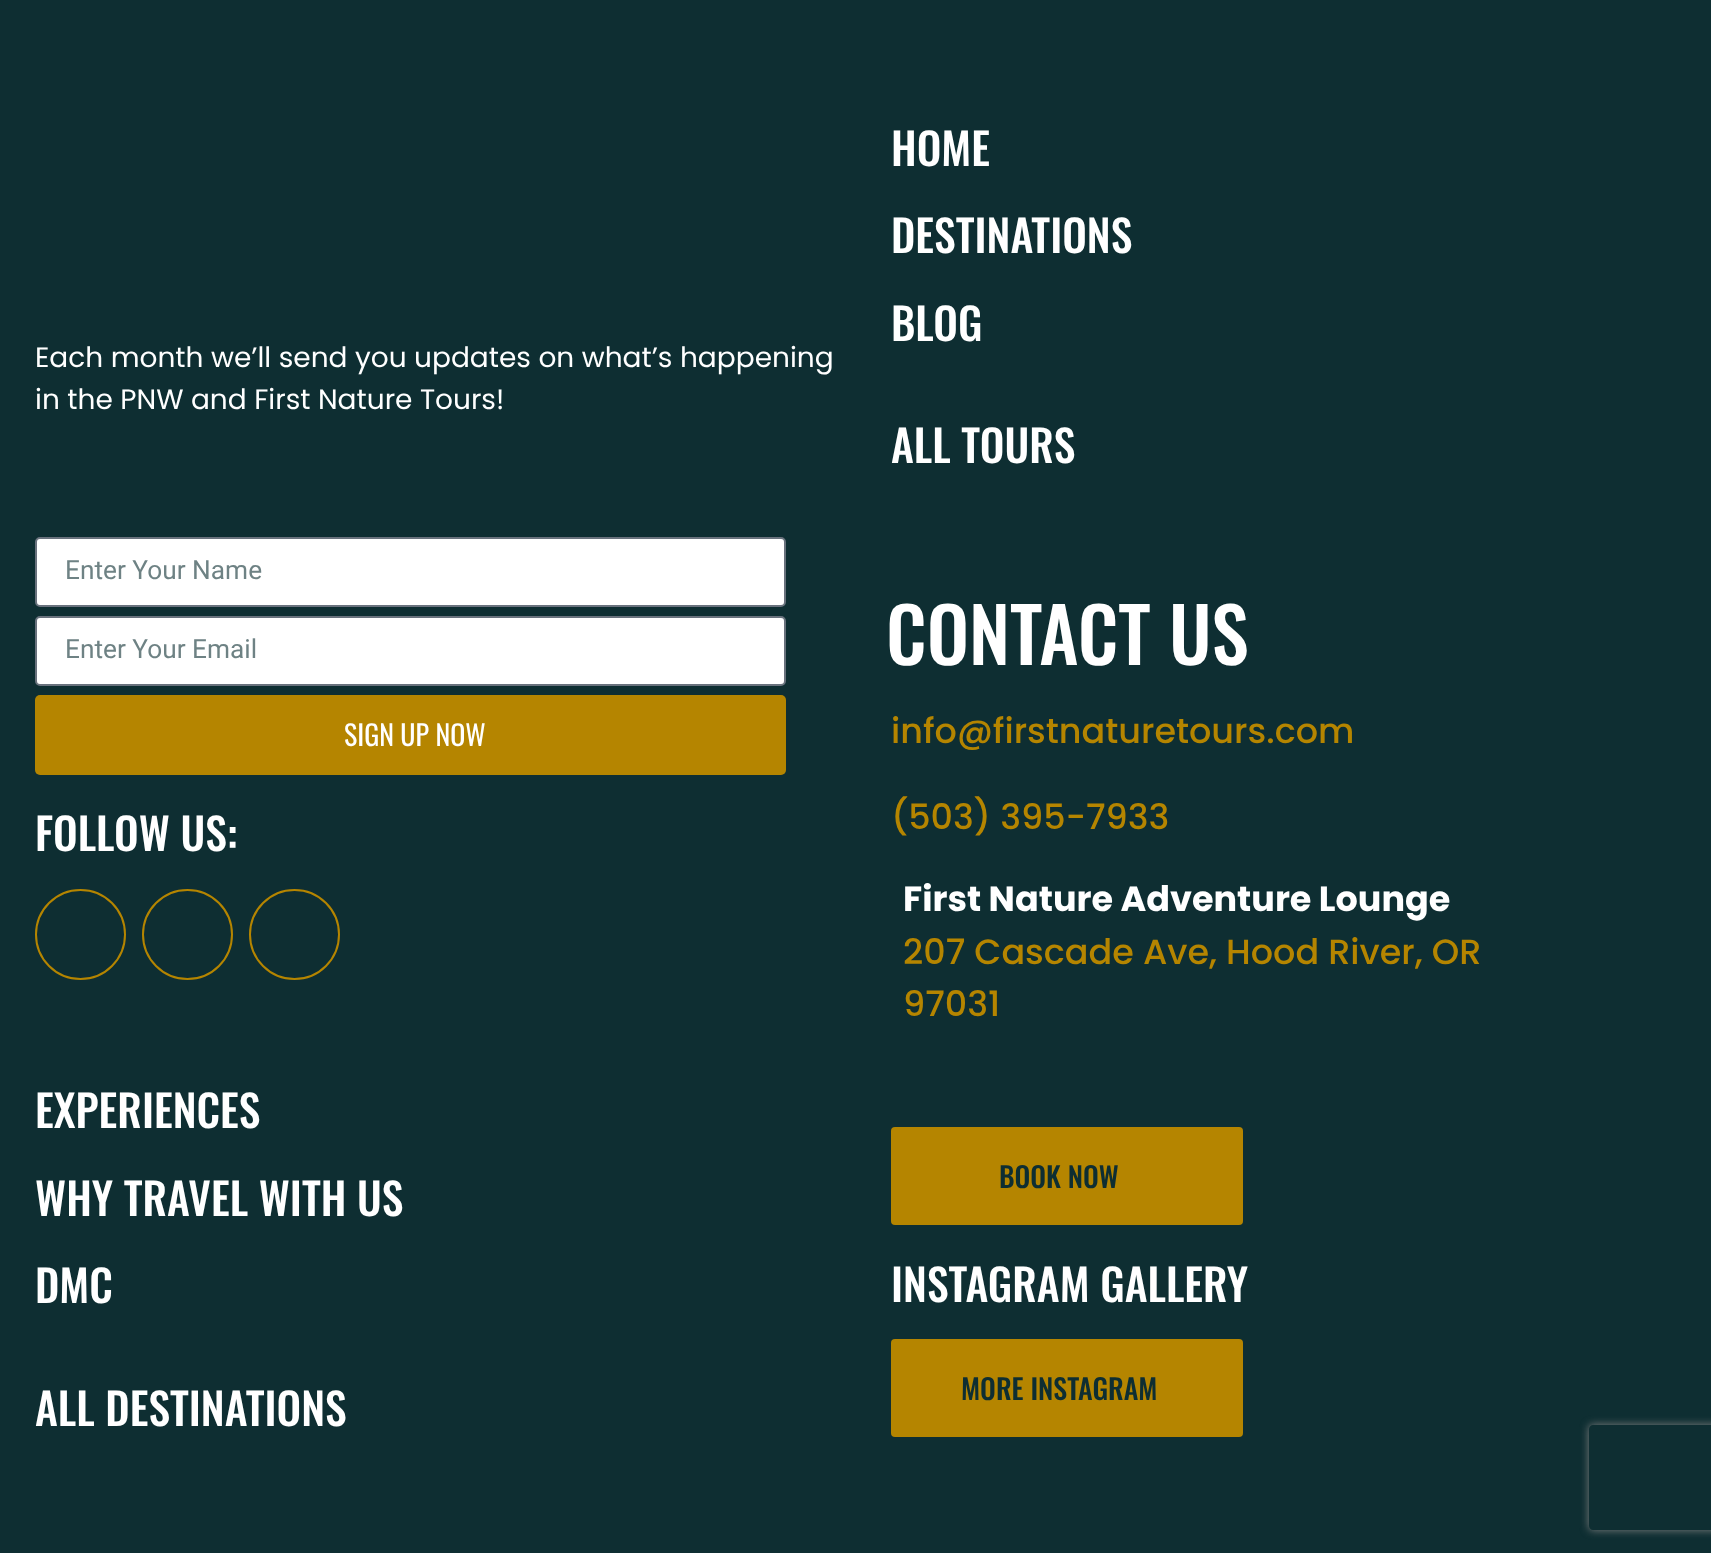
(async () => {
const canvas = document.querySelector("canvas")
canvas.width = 1711
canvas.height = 1553
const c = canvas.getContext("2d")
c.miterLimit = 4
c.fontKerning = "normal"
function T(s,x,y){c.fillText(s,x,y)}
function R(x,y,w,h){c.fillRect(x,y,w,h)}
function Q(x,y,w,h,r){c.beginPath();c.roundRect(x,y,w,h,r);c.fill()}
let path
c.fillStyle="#0e2e32"
R(0,0,1711,1553)
c.font="28px Poppins"
c.fillStyle="#fff"
T("Each month we’ll send you updates on what’s happening",35,367)
T("in the PNW and First Nature Tours!",35,409)
c.beginPath()
c.roundRect(36,538,749,68,4)
c.fill()
c.strokeStyle="#69727d"
c.lineWidth=2
c.stroke()
c.font="26.25px Roboto"
c.fillStyle="#6e8284"
T("Enter Your Name",65,579)
c.fillStyle="#fff"
c.beginPath()
c.roundRect(36,617,749,68,4)
c.fill()
c.stroke()
c.fillStyle="#6e8284"
T("Enter Your Email",65,658)
c.fillStyle="#b58500"
Q(35,695,751,80,5)
c.font="28px Oswald"
c.fillStyle="#fff"
T("SIGN UP NOW",344,746)
c.font="500 43.75px Oswald"
T("FOLLOW US:",35,851)
c.beginPath()
c.arc(80.5,934.5,44.5,0,7)
c.strokeStyle="#b58500"
c.stroke()
c.beginPath()
c.arc(187.5,934.5,44.5,0,7)
c.stroke()
c.beginPath()
c.arc(294.5,934.5,44.5,0,7)
c.stroke()
T("HOME",891,166)
T("DESTINATIONS",891,253)
T("BLOG",891,341)
T("ALL TOURS",891,463)
c.font="500 75.25px Oswald"
T("CONTACT US",886,665)
c.font="500 35px Poppins"
c.fillStyle="#b58500"
T("info@firstnaturetours.com",891,743)
T("(503) 395-7933",891,829)
c.font="bold 35px Poppins"
c.fillStyle="#fff"
T("First Nature Adventure Lounge",903,911)
c.font="500 35px Poppins"
c.fillStyle="#b58500"
T("207 Cascade Ave, Hood River, OR",903,964)
T("97031",903,1016)
c.font="500 43.75px Oswald"
c.fillStyle="#fff"
T("EXPERIENCES",35,1128)
T("WHY TRAVEL WITH US",35,1216)
T("DMC",35,1303)
T("ALL DESTINATIONS",35,1426)
c.fillStyle="#b58500"
Q(891,1127,352,98,4)
c.font="500 28px Oswald"
c.fillStyle="#0e2e32"
T("BOOK NOW",999,1188)
c.font="500 43.75px Oswald"
c.fillStyle="#fff"
T("INSTAGRAM GALLERY",891,1302)
c.fillStyle="#b58500"
Q(891,1339,352,98,4)
c.font="500 28px Oswald"
c.fillStyle="#0e2e32"
T("MORE INSTAGRAM",961,1400)
c.save()
path = new Path2D("M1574 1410h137v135h-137zm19 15h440c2 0 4 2 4 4v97c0 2-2 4-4 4h-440c-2 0-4-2-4-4v-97c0-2 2-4 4-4z")
c.clip(path,"evenodd")
c.fillStyle="#808080"
c.filter="blur(4.5px)"
c.beginPath()
c.roundRect(1589,1425,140,105,4)
c.fill()
c.filter="none"
c.restore()
})()
